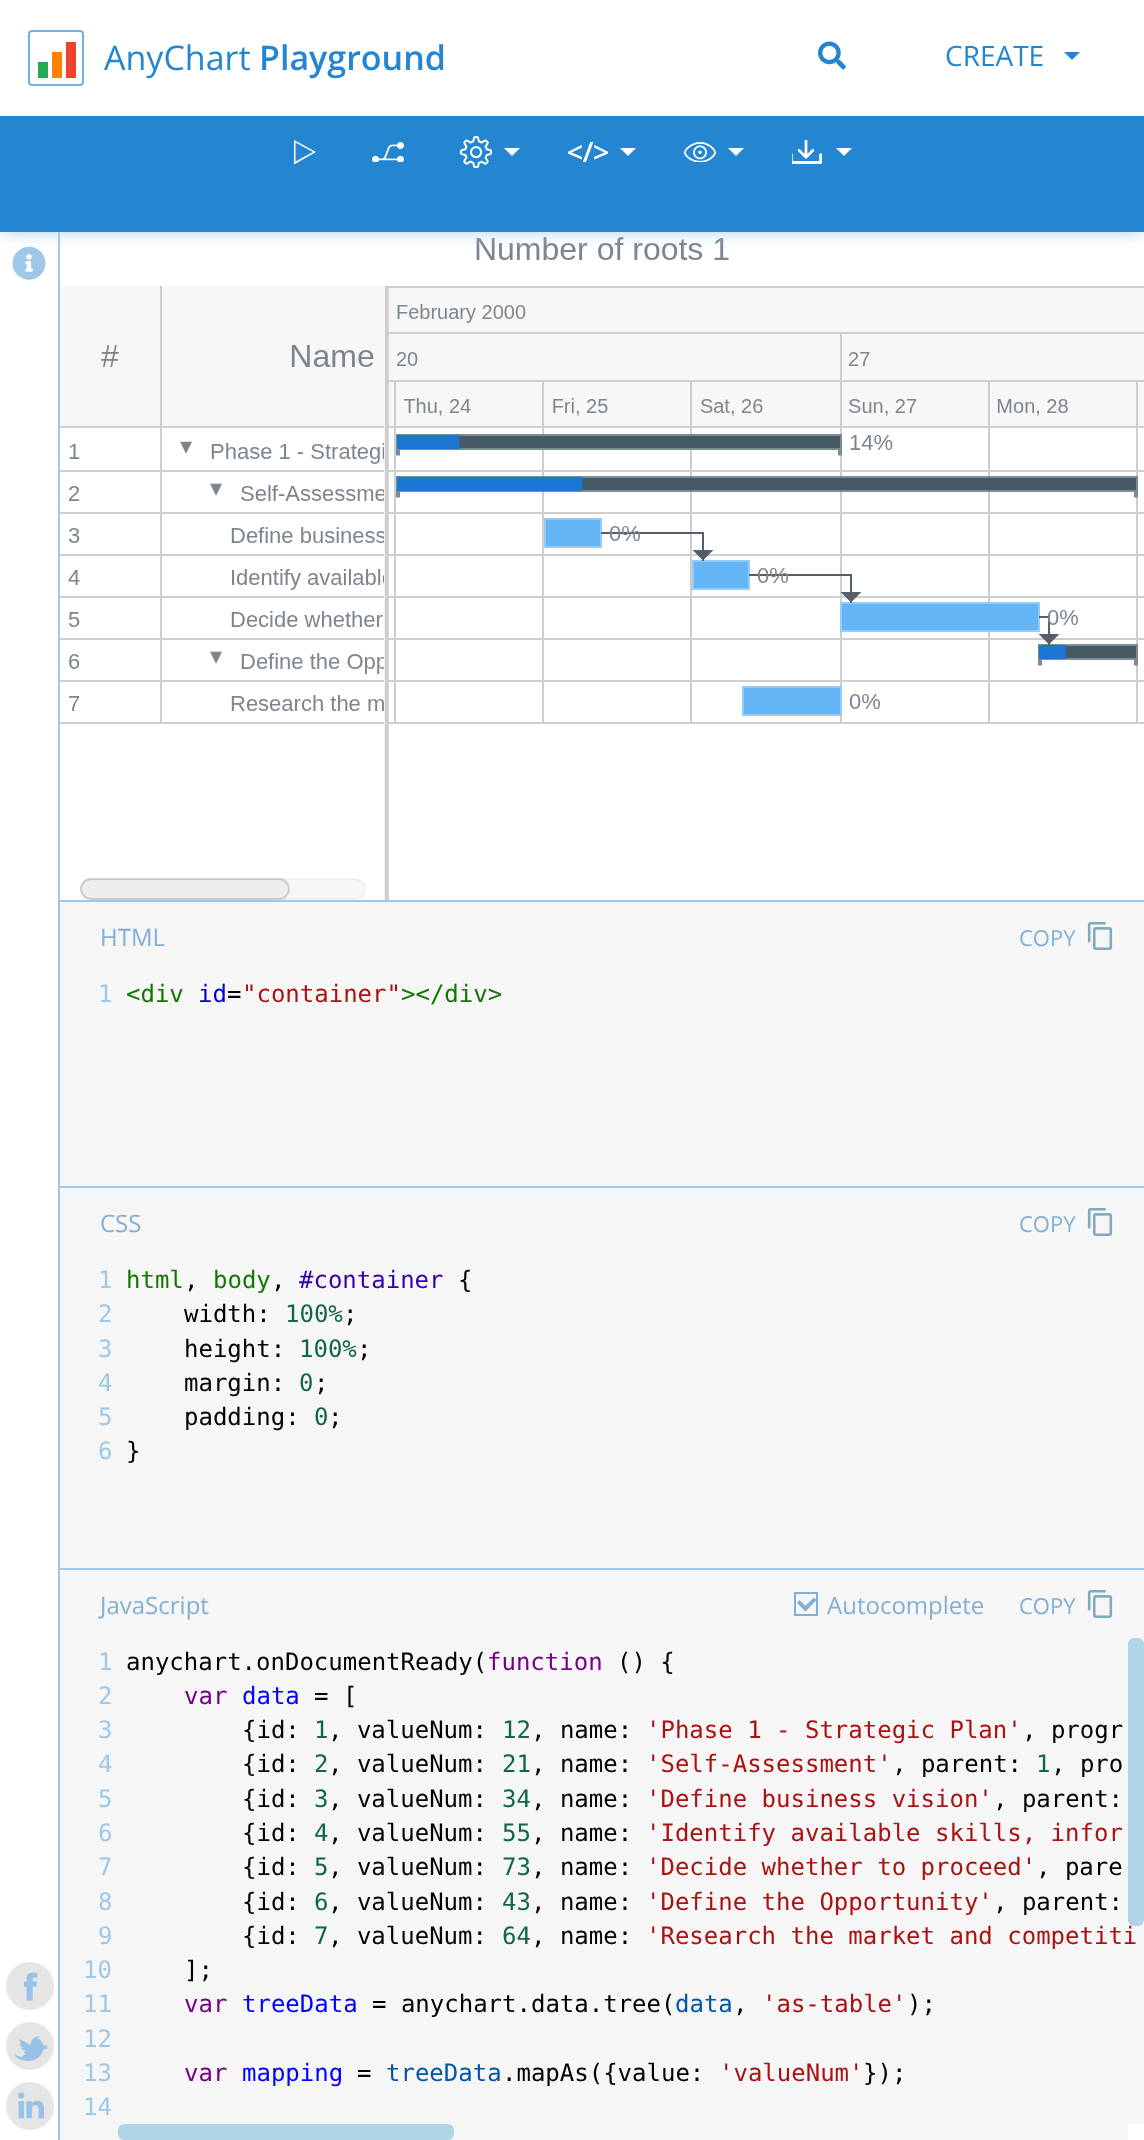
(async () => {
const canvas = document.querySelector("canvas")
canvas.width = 1144
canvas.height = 2140
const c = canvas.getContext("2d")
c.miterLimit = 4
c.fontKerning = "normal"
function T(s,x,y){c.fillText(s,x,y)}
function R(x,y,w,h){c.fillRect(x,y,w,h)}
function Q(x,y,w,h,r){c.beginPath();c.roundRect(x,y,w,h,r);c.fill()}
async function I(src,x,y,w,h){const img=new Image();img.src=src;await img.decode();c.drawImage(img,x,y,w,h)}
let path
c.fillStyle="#fff"
R(0,0,1144,2140)
c.fillStyle="#9fc7e7"
R(58,232,2,1908)
await I("7.png",12,246,34,34)
await I("11.png",60,237,1084,663)
c.save()
c.beginPath()
c.rect(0,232,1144,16)
c.clip()
c.fillStyle="#acd0ec"
c.filter="blur(8px)"
c.beginPath()
c.rect(0,0,1144,232)
c.fill()
c.filter="none"
c.restore()
c.beginPath()
c.roundRect(29,31,54,54,3)
c.strokeStyle="#70b2e4"
c.lineWidth=2
c.stroke()
c.fillStyle="#26a957"
R(38,62,10,16)
c.fillStyle="#ff8207"
R(52,52,10,26)
c.fillStyle="#f0402e"
R(66,42,10,36)
c.font="34px Open Sans"
c.fillStyle="#2485d0"
T("AnyChart",104,70)
c.font="600 34px Open Sans"
T("Playground",259,70)
await I("1.png",818,41,28,29)
c.font="28px Open Sans"
T("CREATE",945,66)
path = new Path2D("M1064 52h16l-8 8z")
c.fill(path)
R(0,116,1144,116)
c.fillStyle="#fff"
path = new Path2D("M294 164.5v-24.5l22 12zm1.5-3l17.5-9.5l-17.5-9.5z")
c.fill(path)
await I("2.png",372,142,32,20)
await I("3.png",460,136,32,32)
path = new Path2D("M504 148h16l-8 8z")
c.fill(path)
await I("4.png",568,142,40,20)
path = new Path2D("M620 148h16l-8 8z")
c.fill(path)
await I("5.png",684,142,32,20)
path = new Path2D("M728 148h16l-8 8z")
c.fill(path)
await I("6.png",792,140,30,24)
path = new Path2D("M836 148h16l-8 8z")
c.fill(path)
c.fillStyle="#e5e5e5"
c.beginPath()
c.arc(30,1986,24,0,7)
c.fill()
await I("8.png",24,1972,14,29)
c.beginPath()
c.arc(30,2046,24,0,7)
c.fill()
await I("9.png",14,2036,34,25)
c.beginPath()
c.arc(30,2106,24,0,7)
c.fill()
await I("10.png",18,2092,26,27)
c.fillStyle="#9fc7e7"
R(60,900,1084,2)
c.fillStyle="#f6f6f6"
R(60,902,1084,284)
c.font="24px Open Sans"
c.fillStyle="#81afd5"
T("HTML",100,946)
c.font="22px Open Sans"
T("COPY",1019,946)
await I("12.png",1087,922,26,28)
c.font="24px DejaVu Sans Mono"
c.fillStyle="#9fc7e7"
T("1",98,1002)
c.fillStyle="#170"
T("<div",126,1002)
c.fillStyle="#00c"
T("id",198,1002)
c.fillStyle="#000"
T("=",227,1002)
c.fillStyle="#a11"
T("\"container\"",242,1002)
c.fillStyle="#170"
T("><\/div>",401,1002)
c.fillStyle="#9fc7e7"
R(60,1186,1084,2)
c.fillStyle="#f6f6f6"
R(60,1188,1084,380)
c.font="24px Open Sans"
c.fillStyle="#81afd5"
T("CSS",100,1232)
c.font="22px Open Sans"
T("COPY",1019,1232)
await I("12.png",1087,1208,26,28)
c.font="24px DejaVu Sans Mono"
c.fillStyle="#9fc7e7"
T("1",98,1288)
c.fillStyle="#170"
T("html",126,1288)
c.fillStyle="#000"
T(",",184,1288)
c.fillStyle="#170"
T("body",213,1288)
c.fillStyle="#000"
T(",",271,1288)
c.fillStyle="#30a"
T("#container",299,1288)
c.fillStyle="#000"
T("{",458,1288)
c.fillStyle="#9fc7e7"
T("2",98,1322)
c.fillStyle="#000"
T("width:",184,1322)
c.fillStyle="#164"
T("100%",285,1322)
c.fillStyle="#000"
T(";",343,1322)
c.fillStyle="#9fc7e7"
T("3",98,1357)
c.fillStyle="#000"
T("height:",184,1357)
c.fillStyle="#164"
T("100%",299,1357)
c.fillStyle="#000"
T(";",357,1357)
c.fillStyle="#9fc7e7"
T("4",98,1391)
c.fillStyle="#000"
T("margin:",184,1391)
c.fillStyle="#164"
T("0",299,1391)
c.fillStyle="#000"
T(";",314,1391)
c.fillStyle="#9fc7e7"
T("5",98,1425)
c.fillStyle="#000"
T("padding:",184,1425)
c.fillStyle="#164"
T("0",314,1425)
c.fillStyle="#000"
T(";",328,1425)
c.fillStyle="#9fc7e7"
T("6",98,1459)
c.fillStyle="#000"
T("}",126,1459)
c.fillStyle="#9fc7e7"
R(60,1568,1084,2)
c.fillStyle="#f6f6f6"
R(60,1570,1084,570)
c.font="24px Open Sans"
c.fillStyle="#81afd5"
T("JavaScript",100,1614)
c.strokeStyle="#81afd5"
c.strokeRect(795,1593,22,22)
path = new Path2D("M802.5 1608.5l11.5-11l2.5 2.5l-11 11.5z")
c.fill(path)
path = new Path2D("M797 1603l2.5-3l8.5 8.5l-2.5 3z")
c.fill(path)
T("Autocomplete",827,1614)
c.font="22px Open Sans"
T("COPY",1019,1614)
await I("12.png",1087,1590,26,28)
c.font="24px DejaVu Sans Mono"
c.fillStyle="#a11"
T("'Research the market and competiti",646,1944)
c.fillStyle="#b0d5e6"
Q(1128,1638,16,288,6)
c.fillStyle="#9fc7e7"
T("1",98,1670)
c.fillStyle="#000"
T("anychart.onDocumentReady(",126,1670)
c.fillStyle="#708"
T("function",487,1670)
c.fillStyle="#000"
T("() {",617,1670)
c.fillStyle="#9fc7e7"
T("2",98,1704)
c.fillStyle="#708"
T("var",184,1704)
c.fillStyle="#00f"
T("data",242,1704)
c.fillStyle="#000"
T("= [",314,1704)
c.fillStyle="#9fc7e7"
T("3",98,1738)
c.fillStyle="#000"
T("{id:",242,1738)
c.fillStyle="#164"
T("1",314,1738)
c.fillStyle="#000"
T(", valueNum:",328,1738)
c.fillStyle="#164"
T("12",502,1738)
c.fillStyle="#000"
T(", name:",531,1738)
c.fillStyle="#a11"
T("'Phase 1 - Strategic Plan'",646,1738)
c.fillStyle="#000"
T(", progr",1022,1738)
c.fillStyle="#9fc7e7"
T("4",98,1772)
c.fillStyle="#000"
T("{id:",242,1772)
c.fillStyle="#164"
T("2",314,1772)
c.fillStyle="#000"
T(", valueNum:",328,1772)
c.fillStyle="#164"
T("21",502,1772)
c.fillStyle="#000"
T(", name:",531,1772)
c.fillStyle="#a11"
T("'Self-Assessment'",646,1772)
c.fillStyle="#000"
T(", parent:",892,1772)
c.fillStyle="#164"
T("1",1036,1772)
c.fillStyle="#000"
T(", pro",1051,1772)
c.fillStyle="#9fc7e7"
T("5",98,1807)
c.fillStyle="#000"
T("{id:",242,1807)
c.fillStyle="#164"
T("3",314,1807)
c.fillStyle="#000"
T(", valueNum:",328,1807)
c.fillStyle="#164"
T("34",502,1807)
c.fillStyle="#000"
T(", name:",531,1807)
c.fillStyle="#a11"
T("'Define business vision'",646,1807)
c.fillStyle="#000"
T(", parent:",993,1807)
c.fillStyle="#9fc7e7"
T("6",98,1841)
c.fillStyle="#000"
T("{id:",242,1841)
c.fillStyle="#164"
T("4",314,1841)
c.fillStyle="#000"
T(", valueNum:",328,1841)
c.fillStyle="#164"
T("55",502,1841)
c.fillStyle="#000"
T(", name:",531,1841)
c.fillStyle="#a11"
T("'Identify available skills, infor",646,1841)
c.fillStyle="#9fc7e7"
T("7",98,1875)
c.fillStyle="#000"
T("{id:",242,1875)
c.fillStyle="#164"
T("5",314,1875)
c.fillStyle="#000"
T(", valueNum:",328,1875)
c.fillStyle="#164"
T("73",502,1875)
c.fillStyle="#000"
T(", name:",531,1875)
c.fillStyle="#a11"
T("'Decide whether to proceed'",646,1875)
c.fillStyle="#000"
T(", pare",1036,1875)
c.fillStyle="#9fc7e7"
T("8",98,1910)
c.fillStyle="#000"
T("{id:",242,1910)
c.fillStyle="#164"
T("6",314,1910)
c.fillStyle="#000"
T(", valueNum:",328,1910)
c.fillStyle="#164"
T("43",502,1910)
c.fillStyle="#000"
T(", name:",531,1910)
c.fillStyle="#a11"
T("'Define the Opportunity'",646,1910)
c.fillStyle="#000"
T(", parent:",993,1910)
c.fillStyle="#9fc7e7"
T("9",98,1944)
c.fillStyle="#000"
T("{id:",242,1944)
c.fillStyle="#164"
T("7",314,1944)
c.fillStyle="#000"
T(", valueNum:",328,1944)
c.fillStyle="#164"
T("64",502,1944)
c.fillStyle="#000"
T(", name:",531,1944)
c.fillStyle="#9fc7e7"
T("10",83,1978)
c.fillStyle="#000"
T("];",184,1978)
c.fillStyle="#9fc7e7"
T("11",83,2012)
c.fillStyle="#708"
T("var",184,2012)
c.fillStyle="#00f"
T("treeData",242,2012)
c.fillStyle="#000"
T("= anychart.data.tree(",372,2012)
c.fillStyle="#05a"
T("data",675,2012)
c.fillStyle="#000"
T(",",733,2012)
c.fillStyle="#a11"
T("'as-table'",762,2012)
c.fillStyle="#000"
T(");",907,2012)
c.fillStyle="#9fc7e7"
T("12",83,2047)
T("13",83,2081)
c.fillStyle="#708"
T("var",184,2081)
c.fillStyle="#00f"
T("mapping",242,2081)
c.fillStyle="#000"
T("=",357,2081)
c.fillStyle="#05a"
T("treeData",386,2081)
c.fillStyle="#000"
T(".mapAs({value:",502,2081)
c.fillStyle="#a11"
T("'valueNum'",719,2081)
c.fillStyle="#000"
T("});",863,2081)
c.fillStyle="#9fc7e7"
T("14",83,2115)
c.fillStyle="#b0d5e6"
Q(118,2124,336,16,6)
c.fillStyle="#fff"
R(1128,2124,16,16)
})()
